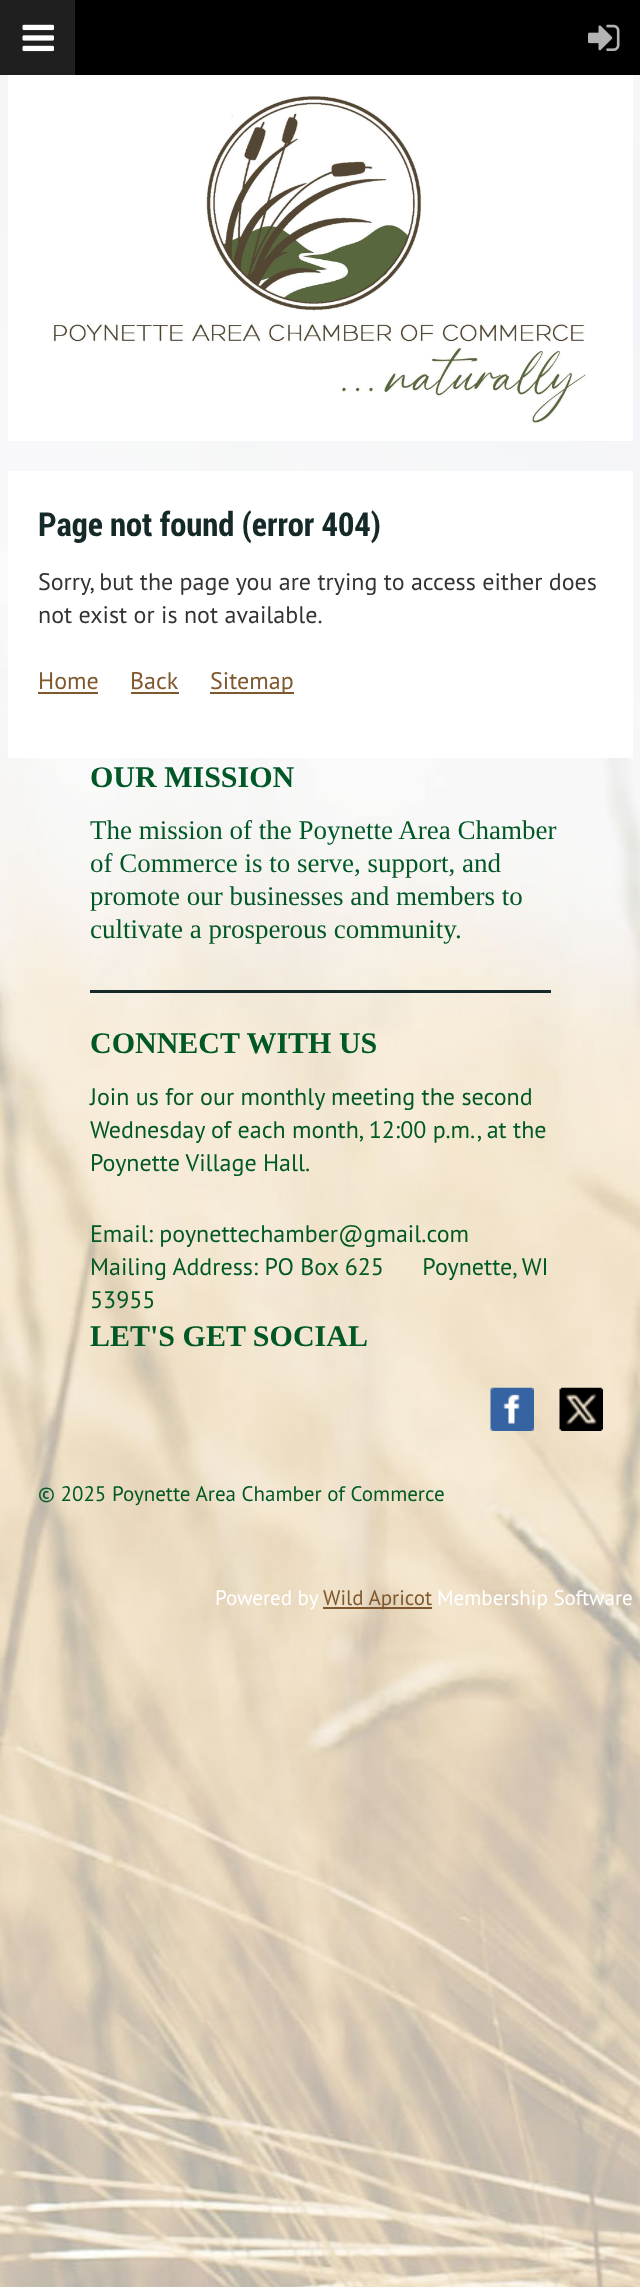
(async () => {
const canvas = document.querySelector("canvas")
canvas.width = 640
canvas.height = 2287
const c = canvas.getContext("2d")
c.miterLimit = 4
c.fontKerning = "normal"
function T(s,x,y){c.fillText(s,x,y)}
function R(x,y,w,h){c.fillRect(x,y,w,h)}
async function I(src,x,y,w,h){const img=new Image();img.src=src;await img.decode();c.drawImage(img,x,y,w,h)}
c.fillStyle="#fff"
R(0,0,640,2287)
await I("1.png",0,75,640,2212)
c.fillStyle="#000"
R(75,0,565,75)
c.fillStyle="#1f1f1f"
R(0,0,75,75)
await I("2.png",22,24,32,28)
await I("3.png",588,24,32,27)
c.fillStyle="#fff"
R(8,75,625,366)
await I("4.png",52,96,535,329)
R(8,471,625,287)
c.font="bold 33px Roboto Condensed"
c.fillStyle="#152928"
T("Page not found (error 404)",38,536)
c.font="24px PT Sans"
c.fillStyle="#333"
T("Sorry, but the page you are trying to access either does",38,590)
T("not exist or is not available.",38,623)
c.fillStyle="#7f582d"
T("Home",38,689)
R(38,692,60,2)
T("Back",130,689)
R(131,692,48,2)
R(210,692,84,2)
T("Sitemap",210,689)
c.font="bold 30px Liberation Serif"
c.fillStyle="#005826"
T("OUR MISSION",90,787)
c.font="27px Liberation Serif"
T("The mission of the Poynette Area Chamber",90,839)
T("of Commerce is to serve, support, and",90,872)
T("promote our businesses and members to",90,905)
T("cultivate a prosperous community.",90,938)
c.fillStyle="#152928"
R(90,990,461,3)
c.font="bold 30px Liberation Serif"
c.fillStyle="#005826"
T("CONNECT WITH US",90,1053)
c.font="24px PT Sans"
T("Join us for our monthly meeting the second",90,1105)
T("Wednesday of each month, 12:00 p.m., at the",90,1138)
T("Poynette Village Hall.",90,1171)
T("Email: poynettechamber@gmail.com",90,1242)
T("Mailing Address: PO Box 625      Poynette, WI",90,1275)
T("53955",90,1308)
c.font="bold 30px Liberation Serif"
T("LET'S GET SOCIAL",90,1346)
await I("5.png",490,1387,44,44)
await I("6.png",559,1387,44,44)
c.font="21px PT Sans"
T("© 2025 Poynette Area Chamber of Commerce",38,1501)
c.fillStyle="#fff"
T("Powered by",215,1605)
c.fillStyle="#7f582d"
R(323,1607,109,2)
T("Wild Apricot",323,1605)
c.fillStyle="#fff"
T("Membership Software",437,1605)
})()
